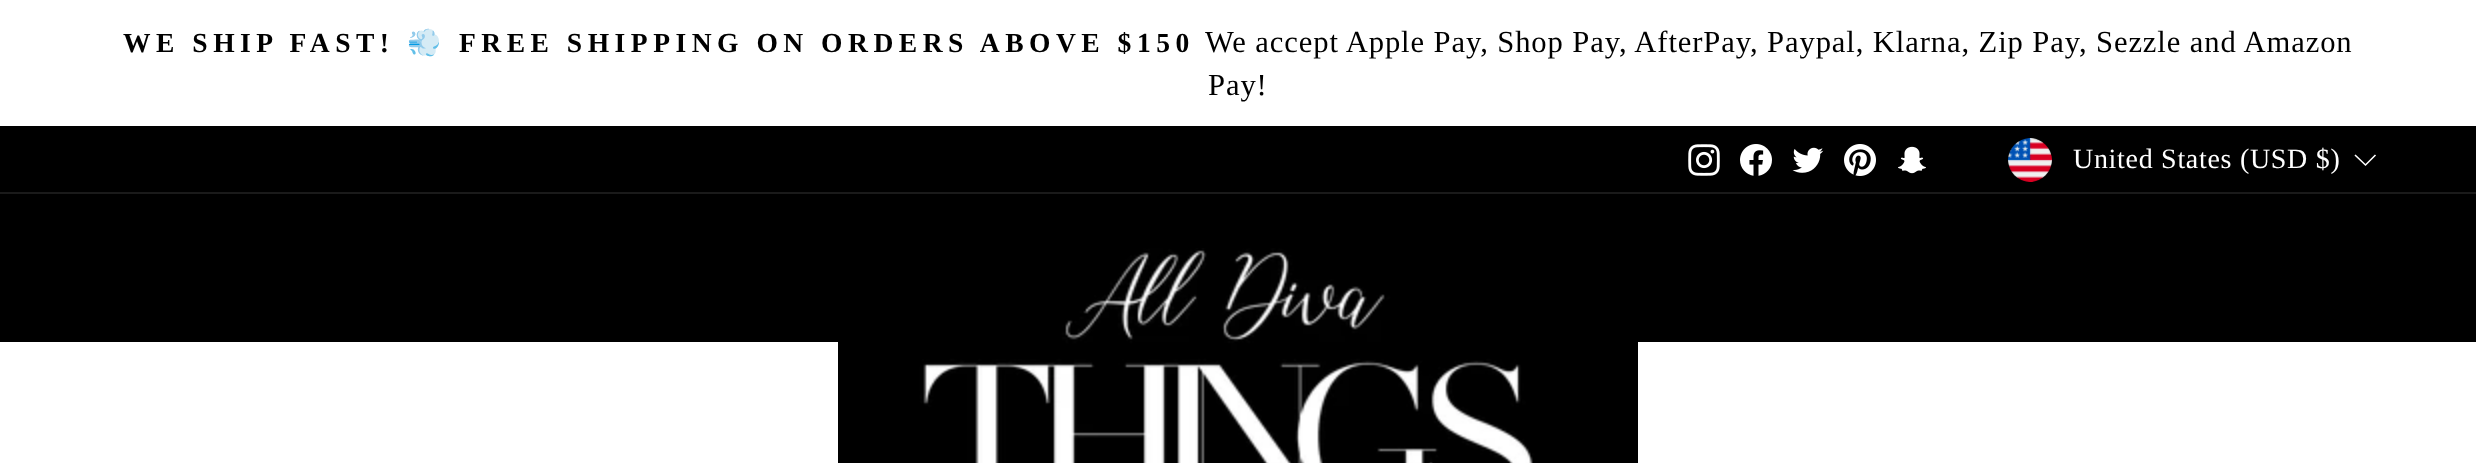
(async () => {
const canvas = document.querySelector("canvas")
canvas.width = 2476
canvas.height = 463
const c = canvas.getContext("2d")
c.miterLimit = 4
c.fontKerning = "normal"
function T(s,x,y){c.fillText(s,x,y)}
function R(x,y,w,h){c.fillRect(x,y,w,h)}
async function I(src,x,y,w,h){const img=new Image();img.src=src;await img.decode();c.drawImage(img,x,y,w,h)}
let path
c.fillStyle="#fff"
R(0,0,2476,463)
c.letterSpacing="5.5px"
c.font="bold 27.55px Liberation Serif"
c.fillStyle="#000"
T("WE SHIP FAST!",123,52)
c.font="bold 27.55px Noto Color Emoji"
T("💨",407,52)
c.font="bold 27.55px Liberation Serif"
T("FREE SHIPPING ON ORDERS ABOVE $150",459,52)
c.letterSpacing="0.9px"
c.font="30.6px Liberation Serif"
T("We accept Apple Pay, Shop Pay, AfterPay, Paypal, Klarna, Zip Pay, Sezzle and Amazon",1205,52)
T("Pay!",1208,95)
R(0,126,2476,66)
await I("1.png",1688,144,32,32)
await I("2.png",1740,144,32,32)
await I("3.png",1792,147,32,26)
await I("4.png",1844,144,32,32)
await I("5.png",1898,146,28,28)
await I("6.png",2008,138,44,44)
c.letterSpacing="0.7px"
c.font="28px Liberation Serif"
c.fillStyle="#fff"
T("United States (USD $)",2073,168)
path = new Path2D("M2355 155l10.5 10l10-10")
c.strokeStyle="#fff"
c.lineWidth=1.6
c.stroke(path)
c.fillStyle="#000"
R(0,194,2476,148)
c.fillStyle="#1a1a1a"
R(0,192,2476,2)
await I("7.png",838,248,800,215)
})()
